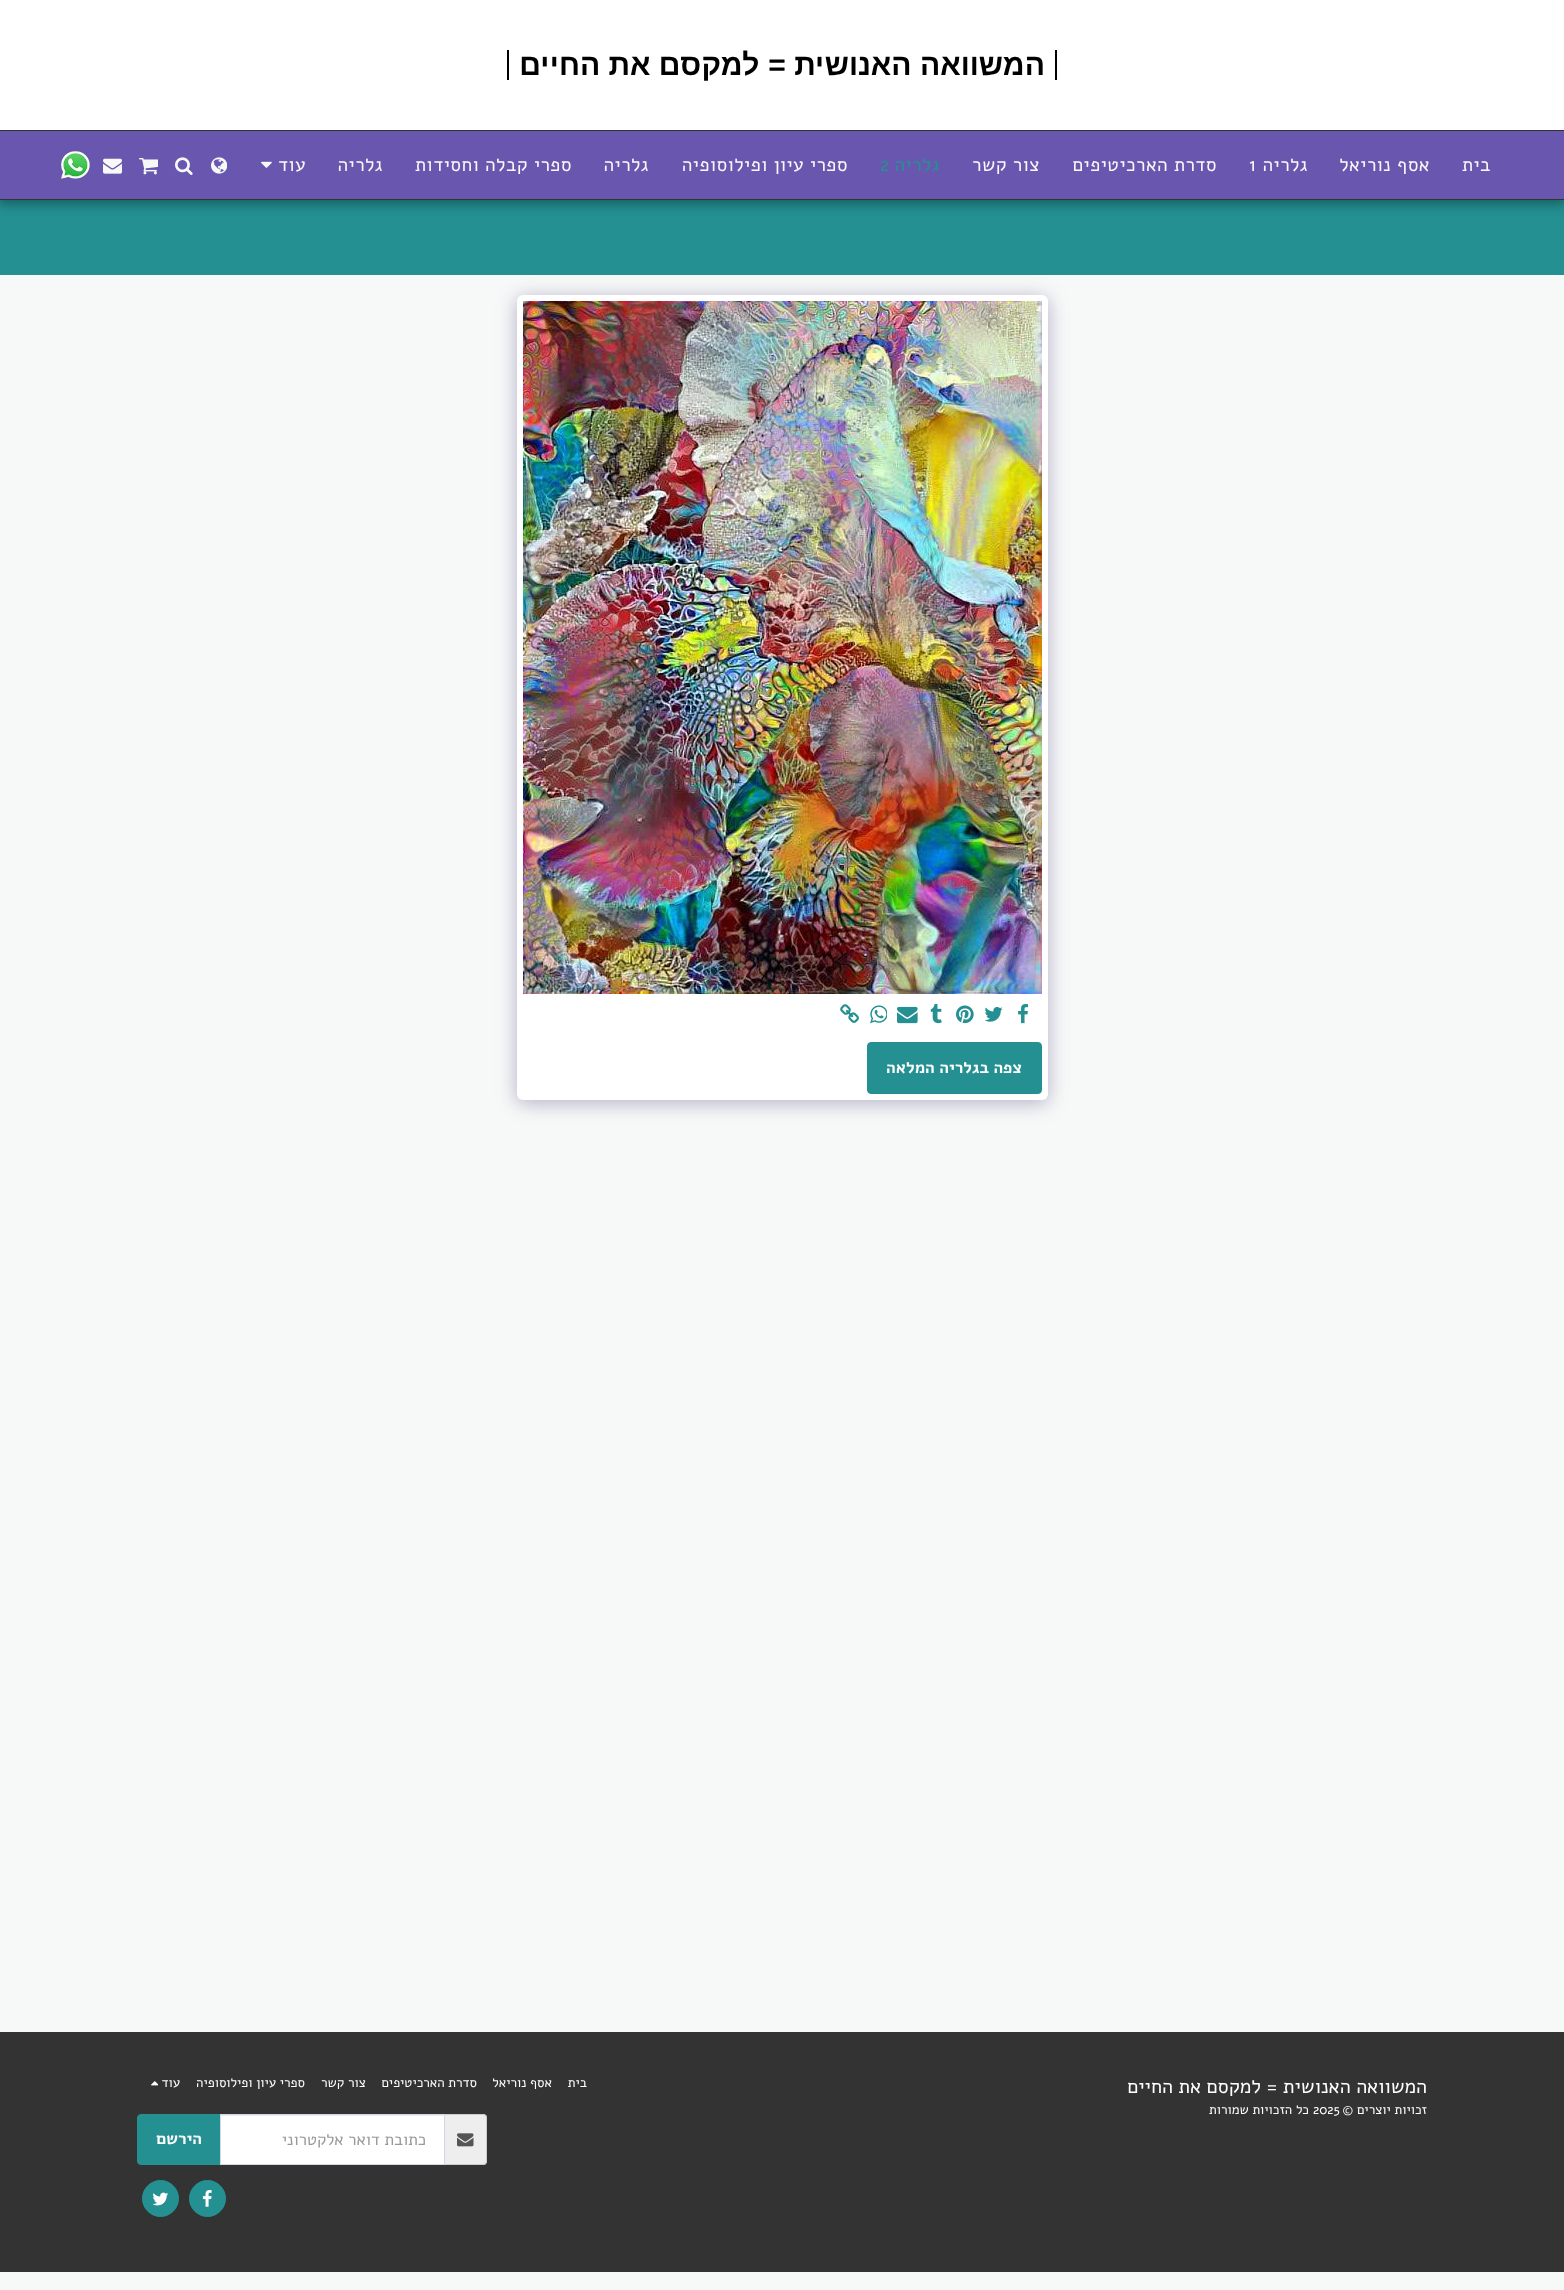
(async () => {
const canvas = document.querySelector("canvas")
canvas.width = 1564
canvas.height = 2290
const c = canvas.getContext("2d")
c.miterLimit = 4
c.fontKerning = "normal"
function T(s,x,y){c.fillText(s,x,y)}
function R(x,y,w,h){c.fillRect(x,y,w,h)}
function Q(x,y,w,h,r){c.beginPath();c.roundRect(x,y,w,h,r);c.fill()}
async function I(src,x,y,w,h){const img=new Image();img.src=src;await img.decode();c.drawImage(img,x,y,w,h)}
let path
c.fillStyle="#f7f9f8"
R(0,0,1564,2290)
c.fillStyle="#249092"
R(0,200,1564,75)
c.fillStyle="#00000059"
c.filter="blur(6px)"
c.beginPath()
c.rect(-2,0,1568,204)
c.fill()
c.filter="none"
c.fillStyle="#333"
R(0,199,1564,1)
c.fillStyle="#fff"
R(0,0,1564,130)
c.fillStyle="#000"
R(1055,50,2,30)
R(507,50,2,30)
c.direction="rtl"
c.font="bold 30px Arimo"
T("המשוואה האנושית = למקסם את החיים",1045,75)
c.fillStyle="#6957af"
R(0,131,1564,68)
c.fillStyle="#333"
R(0,130,1564,1)
c.letterSpacing="0.5px"
c.font="19px Alef"
c.fillStyle="#f7f9f8"
T("בית",1491,171)
T("אסף נוריאל",1430,171)
T("גלריה",1308,171)
c.direction="ltr"
T("1",1249,171)
c.direction="rtl"
T("סדרת הארכיטיפים",1217,171)
T("צור קשר",1040,171)
c.fillStyle="#249092"
T("גלריה",940,171)
c.direction="ltr"
T("2",880,171)
c.direction="rtl"
c.fillStyle="#f7f9f8"
T("ספרי עיון ופילוסופיה",848,171)
T("גלריה",649,171)
T("ספרי קבלה וחסידות",572,171)
T("גלריה",383,171)
T("עוד",306,171)
await I("1.png",261,161,11,7)
await I("2.png",211,157,16,17)
await I("3.png",175,157,18,18)
await I("4.png",139,158,19,17)
await I("5.png",103,158,19,16)
await I("6.png",61,151,29,28)
c.fillStyle="#4d3f7a66"
c.filter="blur(10px)"
c.beginPath()
c.roundRect(517,298,531,805,6)
c.fill()
c.filter="none"
c.fillStyle="#fff"
Q(517,295,531,805,6)
await I("7.png",523,301,519,693)
await I("8.png",1018,1004,11,20)
await I("9.png",984,1007,19,15)
await I("10.png",956,1005,18,19)
await I("11.png",930,1004,12,20)
await I("12.png",897,1006,21,18)
await I("13.png",870,1005,17,19)
await I("14.png",840,1004,19,19)
c.fillStyle="#249092"
c.beginPath()
c.roundRect(867.5,1042.5,174,51,3.5)
c.fill()
c.strokeStyle="#249092"
c.stroke()
c.letterSpacing="0px"
c.font="bold 16.5px Alef"
c.fillStyle="#fff"
T("צפה בגלריה המלאה",1022,1073)
c.fillStyle="#333"
R(0,2032,1564,240)
c.font="19.75px Alef"
c.fillStyle="#fff"
T("המשוואה האנושית = למקסם את החיים",1427,2093)
c.font="13.25px Alef"
T("זכויות יוצרים ©",1427,2114)
c.direction="ltr"
T("2025",1313,2114)
c.direction="rtl"
T("כל הזכויות שמורות",1309,2114)
T("בית",587,2087)
T("אסף נוריאל",552,2087)
T("סדרת הארכיטיפים",477,2087)
T("צור קשר",366,2087)
T("ספרי עיון ופילוסופיה",305,2087)
T("עוד",180,2087)
await I("15.png",151,2081,7,5)
c.fillStyle="#eee"
c.beginPath()
c.roundRect(445,2114,42,51,[0,4,4,0])
c.fill()
c.fillStyle="#ccc"
path = new Path2D("M445 2114h38c2 0 4 2 4 4v43c0 2-2 4-4 4h-38zm0 1h38c2 0 3 1 3 3v43c0 2-1 3-3 3h-38z")
c.fill(path,"evenodd")
await I("16.png",457,2133,17,14)
c.fillStyle="#fff"
R(221,2116,223,48)
c.fillStyle="#ececec"
R(221,2115,223,1)
c.fillStyle="#249092"
c.beginPath()
c.roundRect(137.5,2114.5,83,50,[3.5,0,0,3.5])
c.fill()
c.stroke()
c.strokeStyle="#d4d7e5"
c.strokeRect(220.5,2114.5,224,50)
c.font="16.5px Alef"
c.fillStyle="#999"
T("כתובת דואר אלקטרוני",426,2145)
c.font="bold 16.5px Alef"
c.fillStyle="#fff"
T("הירשם",202,2144)
c.fillStyle="#249092"
c.beginPath()
c.arc(207.5,2198.5,18,0,7)
c.fill()
c.strokeStyle="#249092"
c.stroke()
await I("17.png",202,2190,10,17)
c.beginPath()
c.arc(160.5,2198.5,18,0,7)
c.fill()
c.stroke()
await I("18.png",152,2192,17,14)
})()
